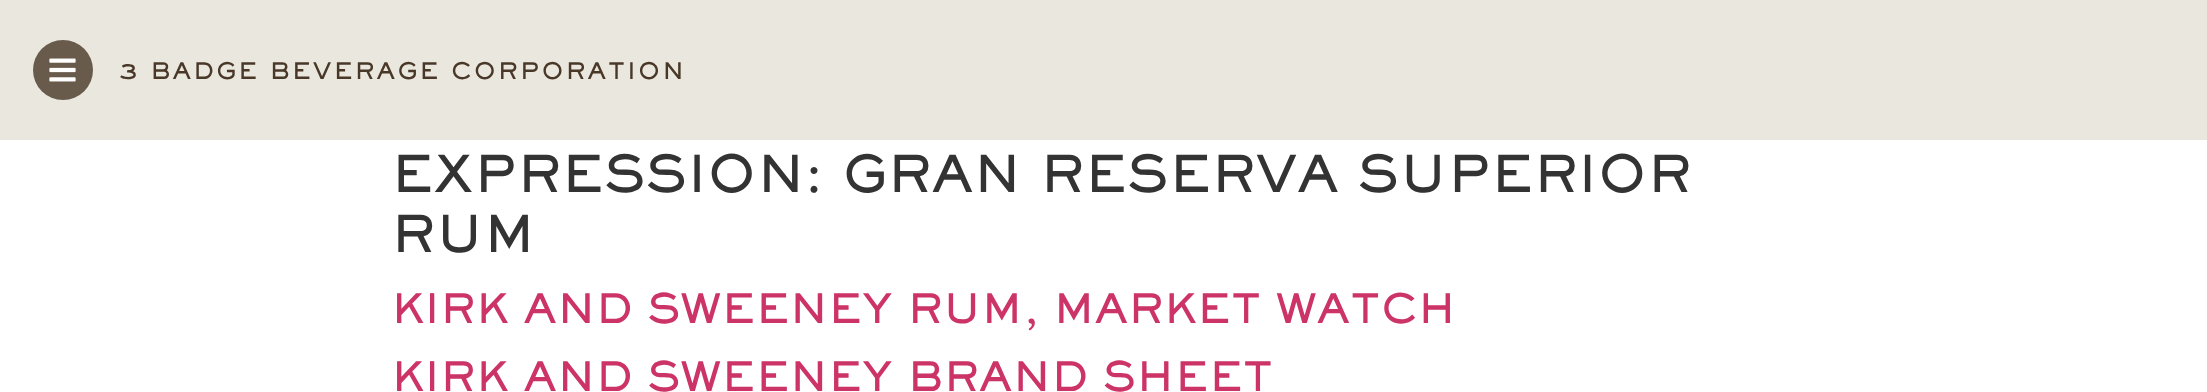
(async () => {
const canvas = document.querySelector("canvas")
canvas.width = 2207
canvas.height = 392
const c = canvas.getContext("2d")
c.miterLimit = 4
c.fontKerning = "normal"
function T(s,x,y){c.fillText(s,x,y)}
function R(x,y,w,h){c.fillRect(x,y,w,h)}
async function I(src,x,y,w,h){const img=new Image();img.src=src;await img.decode();c.drawImage(img,x,y,w,h)}
c.fillStyle="#fff"
R(0,0,2207,392)
c.fillStyle="#e9e7de"
R(0,0,2207,140)
c.fillStyle="#685b4c"
c.beginPath()
c.arc(63,70,30,0,7)
c.fill()
await I("1.png",49,58,27,24)
c.letterSpacing="1.9px"
c.font="900 22.5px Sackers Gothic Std"
c.fillStyle="#493828"
T("3 BADGE BEVERAGE CORPORATION",118,79)
c.letterSpacing="0px"
c.font="900 50px Sackers Gothic Std"
c.fillStyle="#333"
T("EXPRESSION: GRAN RESERVA SUPERIOR",391,192)
T("RUM",391,252)
c.font="900 40px Sackers Gothic Std"
c.fillStyle="#c36"
T("KIRK AND SWEENEY RUM, MARKET WATCH",391,323)
T("KIRK AND SWEENEY BRAND SHEET",391,391)
})()
